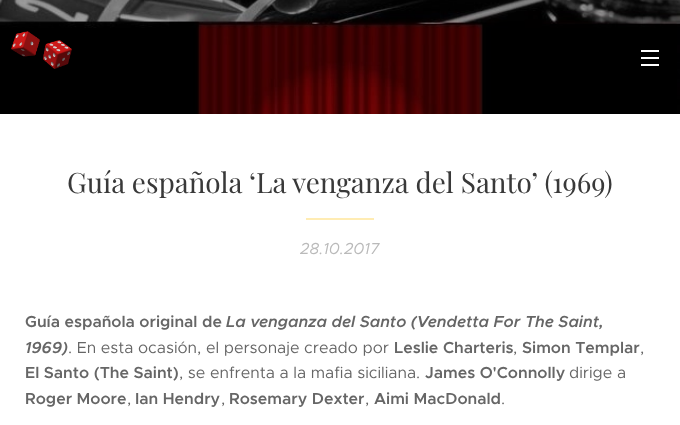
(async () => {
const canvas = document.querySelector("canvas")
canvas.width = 680
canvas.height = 425
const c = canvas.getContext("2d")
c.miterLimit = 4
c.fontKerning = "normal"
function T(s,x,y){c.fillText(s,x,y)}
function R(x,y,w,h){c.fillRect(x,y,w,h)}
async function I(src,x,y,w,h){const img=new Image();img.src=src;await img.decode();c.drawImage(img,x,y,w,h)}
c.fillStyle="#fff"
R(0,0,680,425)
await I("1.png",0,0,680,114)
await I("2.png",11,31,61,38)
R(641,57,18,2)
R(641,50,18,2)
R(641,64,18,2)
c.font="28px Playfair Display"
c.fillStyle="#393939"
T("Guía española ‘La venganza del Santo’ (1969)",67,193)
c.fillStyle="#ffecb3"
R(306,218,68,2)
c.font="italic 16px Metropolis"
c.fillStyle="#bababa"
T("28.10.2017",300,254)
c.font="600 16px Metropolis"
c.fillStyle="#666"
T("Guía española original de",25,327)
c.font="italic 600 16px Metropolis"
T("La venganza del Santo (Vendetta For The Saint,",226,327)
T("1969)",25,353)
c.font="16px Metropolis"
T(". En esta ocasión, el personaje creado por",68,353)
c.font="600 16px Metropolis"
T("Leslie Charteris",394,353)
c.font="16px Metropolis"
T(",",513,353)
c.font="600 16px Metropolis"
T("Simon Templar",522,353)
c.font="16px Metropolis"
T(",",640,353)
c.font="600 16px Metropolis"
T("El Santo (The Saint)",25,378)
c.font="16px Metropolis"
T(", se enfrenta a la mafia siciliana.",179,378)
c.font="600 16px Metropolis"
T("James O'Connolly",425,378)
c.font="16px Metropolis"
T("dirige a",569,378)
c.font="600 16px Metropolis"
T("Roger Moore",25,404)
c.font="16px Metropolis"
T(",",127,404)
c.font="600 16px Metropolis"
T("Ian Hendry",135,404)
c.font="16px Metropolis"
T(",",221,404)
c.font="600 16px Metropolis"
T("Rosemary Dexter",229,404)
c.font="16px Metropolis"
T(",",365,404)
c.font="600 16px Metropolis"
T("Aimi MacDonald",374,404)
c.font="16px Metropolis"
T(".",501,404)
})()
